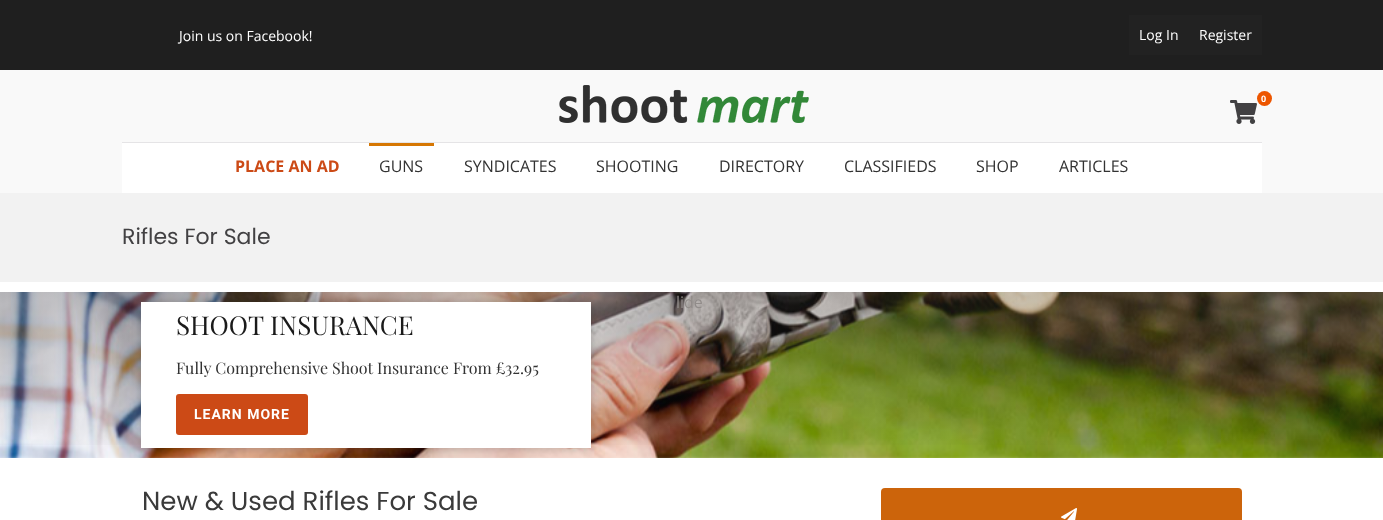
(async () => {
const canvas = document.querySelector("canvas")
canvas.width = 1383
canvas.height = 520
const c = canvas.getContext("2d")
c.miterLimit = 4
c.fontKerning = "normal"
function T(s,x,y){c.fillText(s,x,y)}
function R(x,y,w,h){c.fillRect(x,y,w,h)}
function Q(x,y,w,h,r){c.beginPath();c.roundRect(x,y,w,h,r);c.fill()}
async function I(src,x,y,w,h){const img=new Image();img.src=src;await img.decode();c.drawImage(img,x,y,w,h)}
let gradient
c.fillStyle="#fff"
R(0,0,1383,520)
c.fillStyle="#1f1f1f"
R(0,0,1383,70)
c.font="14px Open Sans"
c.fillStyle="#fff"
T("Join us on Facebook!",179,41)
c.fillStyle="#222"
R(1129,15,133,40)
c.fillStyle="#fff"
T("Log In",1139,40)
T("Register",1199,40)
c.fillStyle="#f9f9f9"
R(0,70,1383,123)
await I("1.png",559,85,250,38)
c.fillStyle="#ed5600"
c.beginPath()
c.arc(1264.5,98.5,7.5,0,7)
c.fill()
c.font="bold 9px Open Sans"
c.fillStyle="#fff"
T("0",1261,102)
await I("2.png",1230,100,27,24)
c.fillStyle="#e5e4e6"
R(122,142,1140,1)
c.fillStyle="#fff"
R(122,143,1140,50)
c.font="bold 16px Open Sans"
c.fillStyle="#cc4a16"
T("PLACE AN AD",235,172)
c.fillStyle="#d67703"
R(369,143,65,3)
c.font="16px Open Sans"
c.fillStyle="#333"
T("GUNS",379,172)
T("SYNDICATES",464,172)
T("SHOOTING",596,172)
T("DIRECTORY",719,172)
T("CLASSIFIEDS",844,172)
T("SHOP",976,172)
T("ARTICLES",1059,172)
c.fillStyle="#f2f2f2"
R(0,193,1383,89)
c.font="22px Poppins"
c.fillStyle="#424143"
T("Rifles For Sale",122,244)
await I("3.png",0,292,1383,166)
gradient = c.createLinearGradient(692,292,692,458)
gradient.addColorStop(0,"#3d383847")
gradient.addColorStop(1,"#3d383800")
c.fillStyle = gradient
R(0,292,1383,153)
c.font="16px Open Sans"
c.fillStyle="#918c8a"
T("lide",676,308)
c.fillStyle="#00000038"
c.filter="blur(5px)"
c.beginPath()
c.rect(141,303,450,146)
c.fill()
c.filter="none"
c.fillStyle="#fff"
R(141,302,450,146)
c.font="26px Playfair Display"
c.fillStyle="#1a1a1a"
T("SHOOT INSURANCE",176,335)
c.font="16px Playfair Display"
c.fillStyle="#333"
T("Fully Comprehensive Shoot Insurance From £32.95",176,374)
c.fillStyle="#cc4a16"
Q(176,394,132,41,3)
c.letterSpacing="1px"
c.font="bold 14px Roboto"
c.fillStyle="#fff"
T("LEARN MORE",194,419)
c.letterSpacing="0px"
c.font="26px Poppins"
c.fillStyle="#3a3a3a"
T("New & Used Rifles For Sale",142,510)
c.fillStyle="#cc640b"
Q(881,488,361,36,4)
await I("4.png",1061,508,16,12)
})()
